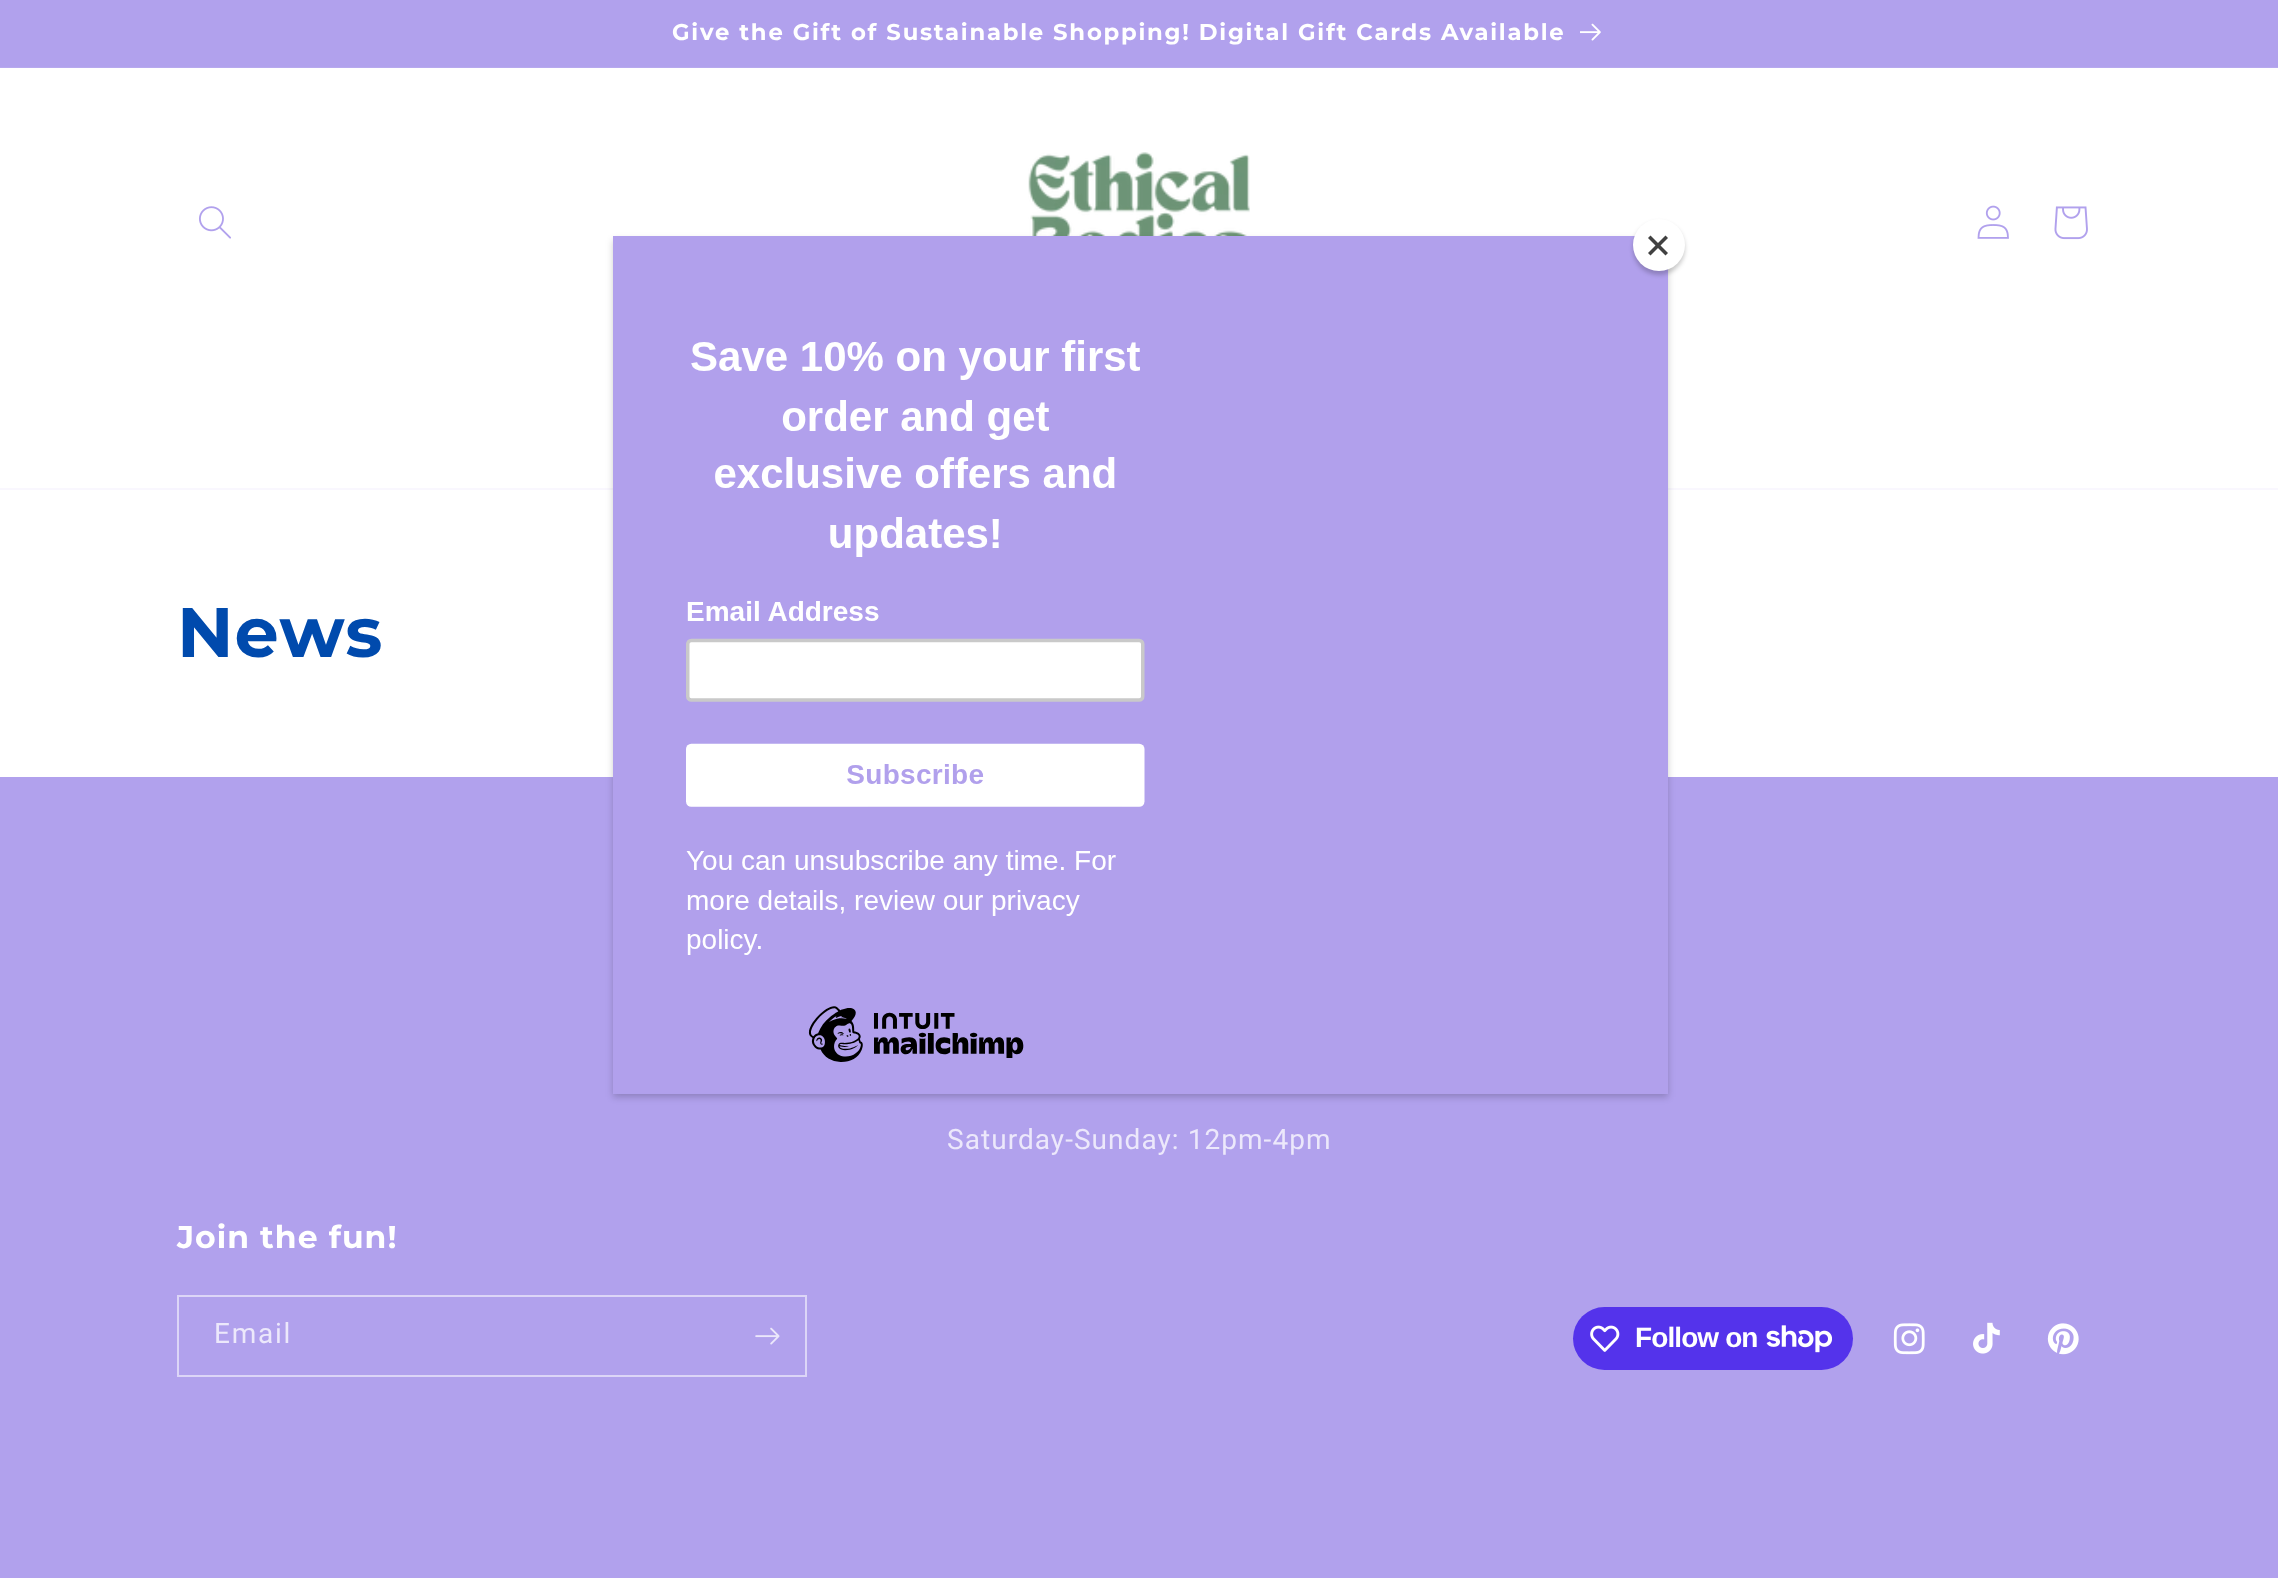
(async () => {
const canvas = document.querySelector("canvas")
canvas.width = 2278
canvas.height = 1578
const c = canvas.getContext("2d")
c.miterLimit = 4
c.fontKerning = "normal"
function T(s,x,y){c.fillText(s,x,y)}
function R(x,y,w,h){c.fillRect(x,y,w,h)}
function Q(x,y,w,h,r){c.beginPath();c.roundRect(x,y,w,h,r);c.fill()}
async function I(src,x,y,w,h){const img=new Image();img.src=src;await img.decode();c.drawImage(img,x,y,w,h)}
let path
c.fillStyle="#fff"
R(0,0,2278,1578)
c.fillStyle="#b1a1ed"
R(0,0,2278,67)
c.fillStyle="#b7a9ee"
R(0,67,2278,1)
c.letterSpacing="1.75px"
c.font="bold 22.75px Montserrat"
c.fillStyle="#fff"
T("Give the Gift of Sustainable Shopping! Digital Gift Cards Available",672,40)
await I("1.png",1580,23,21,18)
c.fillStyle="#f9f7fe"
R(0,488,2278,2)
await I("2.png",199,206,32,33)
await I("3.png",1028,152,222,84)
await I("4.png",1977,205,32,34)
await I("5.png",2054,206,34,34)
c.letterSpacing="1.05px"
c.font="bold 70px Montserrat"
c.fillStyle="#004aad"
T("News",177,657)
c.fillStyle="#b1a1ed"
R(0,777,2278,801)
c.fillStyle="#00000033"
c.filter="blur(3.5px)"
c.beginPath()
c.rect(613,240,1055,857)
c.fill()
c.filter="none"
await I("6.png",613,236,1055,858)
c.filter="blur(2px)"
c.beginPath()
c.roundRect(1633,222,52,53,26)
c.fill()
c.filter="none"
c.fillStyle="#fff"
c.beginPath()
c.arc(1659,245,26,0,7)
c.fill()
c.fillStyle="#414141"
path = new Path2D("M1665.5 235.5l2.5 2.5l-17.5 17.5l-2.5-2.5z")
c.fill(path)
path = new Path2D("M1648 238l2.5-2.5l17.5 17.5l-2.5 2.5z")
c.fill(path)
c.font="28px Roboto"
c.fillStyle="#ece8fb"
T("Saturday-Sunday: 12pm-4pm",947,1149)
c.font="bold 31.5px Montserrat"
c.fillStyle="#fff"
T("Join the fun!",177,1248)
c.strokeStyle="#dcd5f7"
c.lineWidth=2
c.strokeRect(178,1296,628,80)
c.letterSpacing="1.75px"
c.font="28px Roboto"
c.fillStyle="#ece8fb"
T("Email",214,1343)
await I("7.png",755,1327,25,18)
c.fillStyle="#5433eb"
Q(1573,1307,280,63,31.5)
await I("8.png",1590,1325,30,27)
c.letterSpacing="-0.9px"
c.font="bold 28px Liberation Sans"
c.fillStyle="#fff"
T("Follow on",1635,1347)
await I("9.png",1766,1325,66,28)
await I("10.png",1893,1323,32,32)
await I("11.png",1973,1322,27,32)
await I("12.png",2047,1323,32,32)
})()
